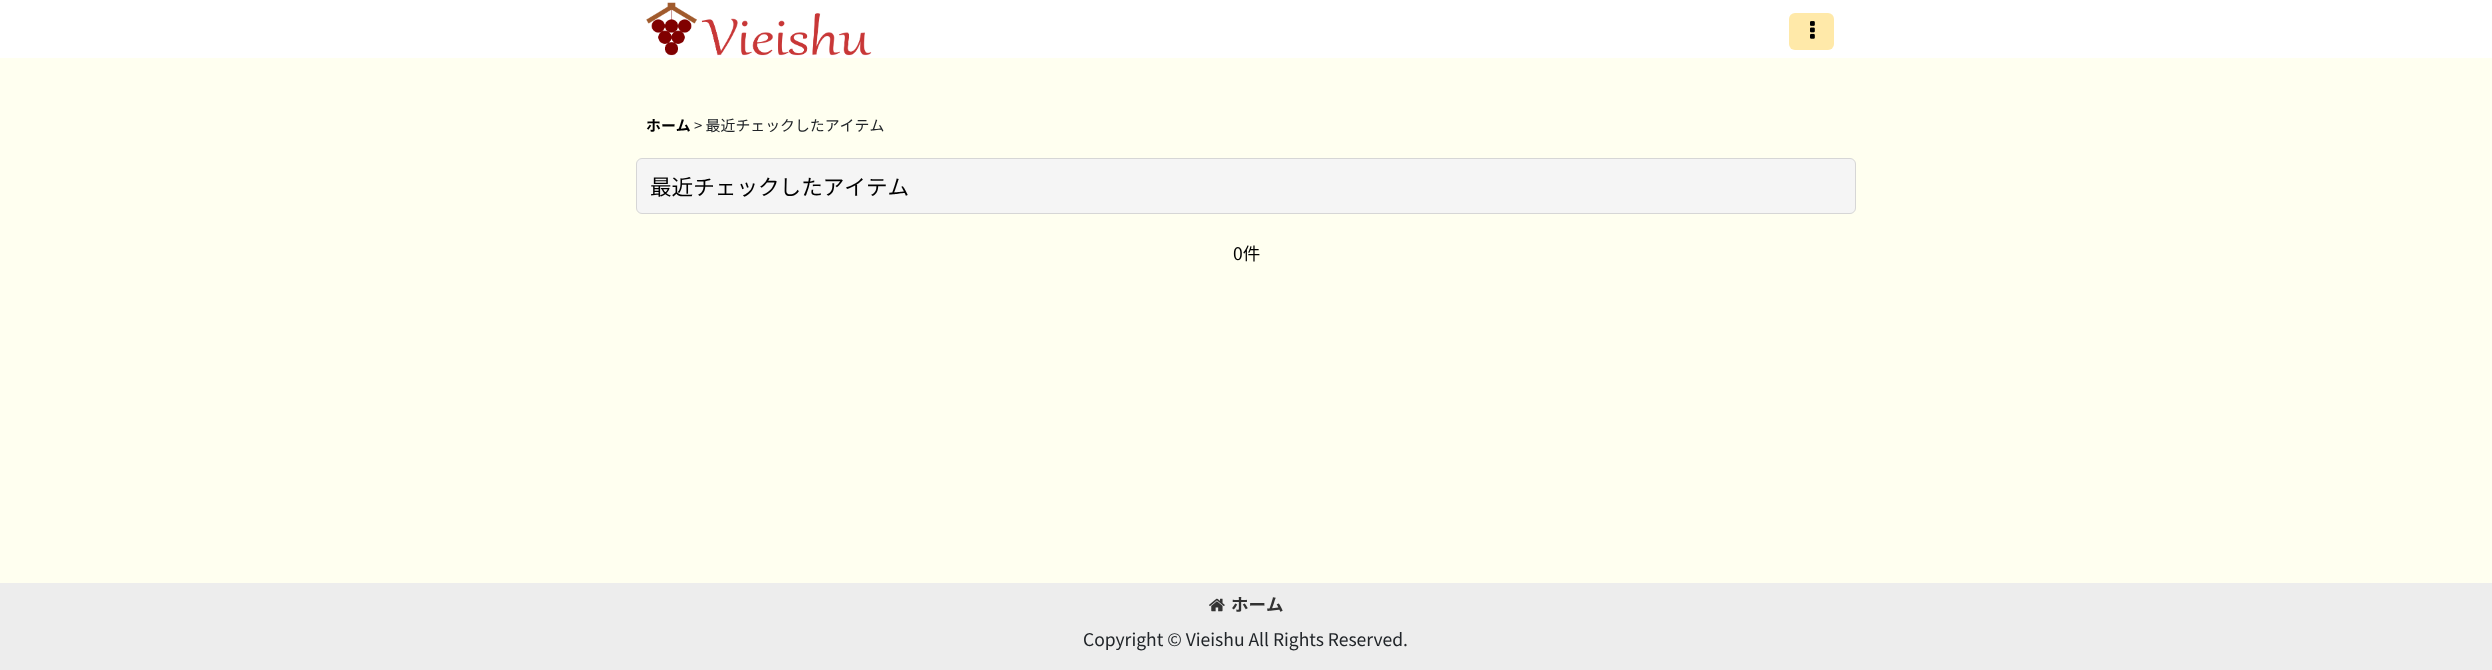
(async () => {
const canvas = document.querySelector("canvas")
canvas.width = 2492
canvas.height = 670
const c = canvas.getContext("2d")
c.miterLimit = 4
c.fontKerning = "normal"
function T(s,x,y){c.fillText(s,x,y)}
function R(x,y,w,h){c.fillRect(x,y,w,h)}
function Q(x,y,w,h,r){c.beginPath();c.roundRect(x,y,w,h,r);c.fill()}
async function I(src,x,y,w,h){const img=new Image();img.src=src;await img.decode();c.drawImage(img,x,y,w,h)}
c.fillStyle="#fffff0"
R(0,0,2492,670)
c.fillStyle="#fff"
R(0,0,2492,58)
await I("1.png",646,2,226,54)
c.fillStyle="#ffe9a9"
Q(1789,13,45,37,6)
await I("2.png",1810,21,5,18)
c.font="bold 14.9px Noto Sans JP"
c.fillStyle="#000"
T("ホーム",646,131)
c.font="14.9px Noto Sans JP"
c.fillStyle="#212529"
T("> 最近チェックしたアイテム",694,131)
c.fillStyle="#f5f5f5"
c.beginPath()
c.roundRect(636.5,158.5,1219,55,5.5)
c.fill()
c.strokeStyle="#d6d6d6"
c.stroke()
c.font="21.6px Noto Sans JP"
c.fillStyle="#000"
T("最近チェックしたアイテム",650,195)
c.font="17.5px Noto Sans JP"
T("0件",1233,260)
c.fillStyle="#ededed"
R(0,583,2492,87)
await I("3.png",1209,598,16,14)
c.font="bold 17.5px Noto Sans JP"
c.fillStyle="#333"
T("ホーム",1231,611)
c.font="17.5px Noto Sans JP"
c.fillStyle="#212529"
T("Copyright © Vieishu All Rights Reserved.",1083,646)
})()
